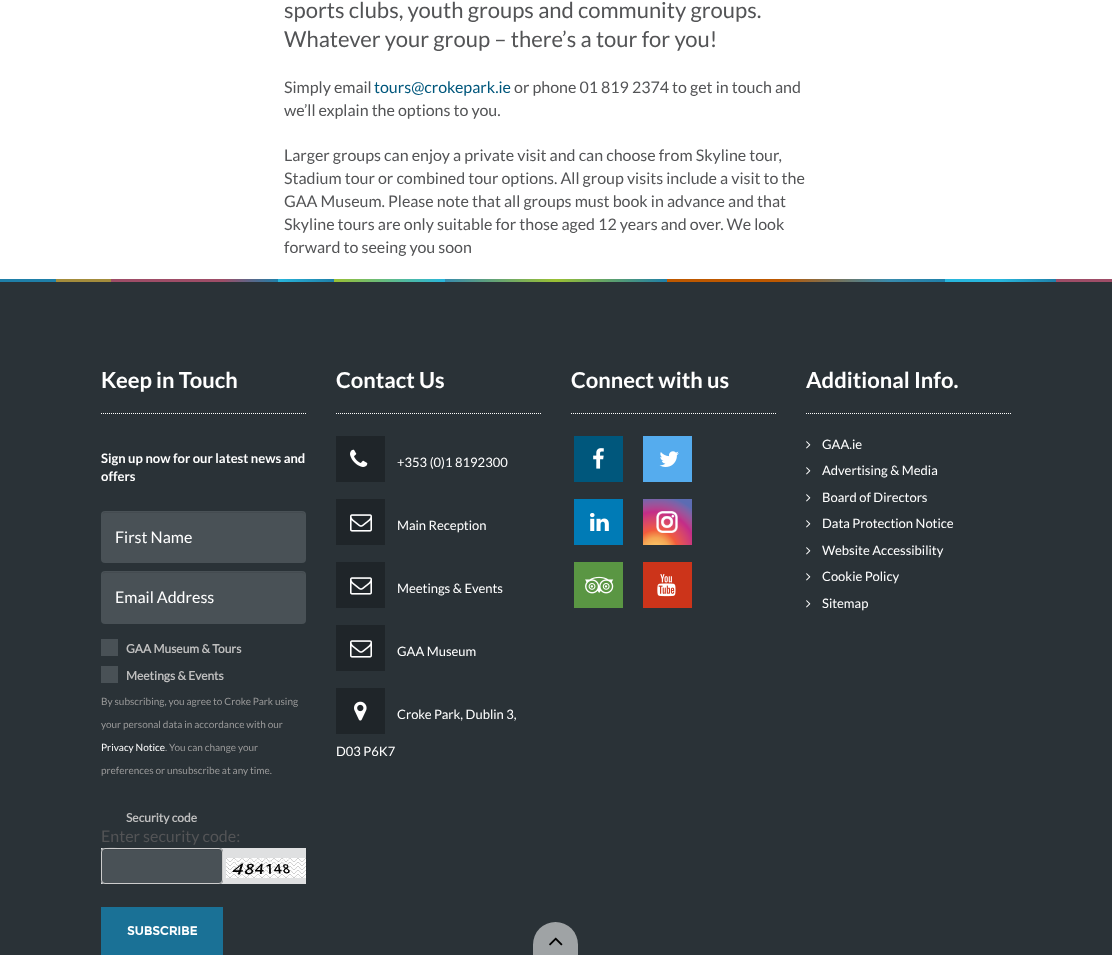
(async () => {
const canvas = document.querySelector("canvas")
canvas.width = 1112
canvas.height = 955
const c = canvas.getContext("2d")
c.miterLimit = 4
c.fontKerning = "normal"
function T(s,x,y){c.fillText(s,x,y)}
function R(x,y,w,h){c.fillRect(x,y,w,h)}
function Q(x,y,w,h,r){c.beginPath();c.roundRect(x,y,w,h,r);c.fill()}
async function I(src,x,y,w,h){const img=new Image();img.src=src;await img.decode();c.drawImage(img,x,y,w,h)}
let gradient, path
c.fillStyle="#fff"
R(0,0,1112,955)
c.font="22px Lato"
c.fillStyle="#535456"
T("sports clubs, youth groups and community groups.",284,18)
T("Whatever your group – there’s a tour for you!",284,47)
c.font="16px Lato"
T("Simply email",284,93)
c.fillStyle="#00577c"
T("tours@crokepark.ie",374,93)
c.fillStyle="#535456"
T("or phone 01 819 2374 to get in touch and",514,93)
T("we’ll explain the options to you.",284,116)
T("Larger groups can enjoy a private visit and can choose from Skyline tour,",284,161)
T("Stadium tour or combined tour options. All group visits include a visit to the",284,184)
T("GAA Museum. Please note that all groups must book in advance and that",284,207)
T("Skyline tours are only suitable for those aged 12 years and over. We look",284,230)
T("forward to seeing you soon",284,253)
gradient = c.createLinearGradient(0,279,1112,279)
gradient.addColorStop(0,"#1f7fa8")
gradient.addColorStop(.05,"#1f7fa8")
gradient.addColorStop(.05,"#a38c3c")
gradient.addColorStop(.1,"#a38c3c")
gradient.addColorStop(.1,"#1f7fa8")
gradient.addColorStop(.1,"#9e4d67")
gradient.addColorStop(.2,"#9e4d67")
gradient.addColorStop(.25,"#1f7fa8")
gradient.addColorStop(.25,"#28b6dc")
gradient.addColorStop(.3,"#1f7fa8")
gradient.addColorStop(.3,"#9ac033")
gradient.addColorStop(.4,"#28b6dc")
gradient.addColorStop(.4,"#1f7fa8")
gradient.addColorStop(.4,"#388bad")
gradient.addColorStop(.5,"#9ac033")
gradient.addColorStop(.6,"#1f7fa8")
gradient.addColorStop(.6,"#bd5800")
gradient.addColorStop(.7,"#bd5800")
gradient.addColorStop(.8,"#388bad")
gradient.addColorStop(.85,"#1f7fa8")
gradient.addColorStop(.85,"#28b6dc")
gradient.addColorStop(.9,"#28b6dc")
gradient.addColorStop(.95,"#1f7fa8")
gradient.addColorStop(.95,"#9e4d67")
gradient.addColorStop(1,"#9e4d67")
c.fillStyle = gradient
R(0,279,1112,3)
c.fillStyle="#2a3237"
R(0,282,1112,673)
path = new Path2D("M101 413.5h205")
c.strokeStyle="#fff"
c.setLineDash([1,1])
c.stroke(path)
c.font="bold 22px Lato"
c.fillStyle="#fff"
T("Keep in Touch",101,388)
c.font="bold 13px Lato"
T("Sign up now for our latest news and",101,463)
T("offers",101,481)
c.fillStyle="#495156"
Q(101,511,205,52,4)
c.fillStyle="#444b50"
path = new Path2D("M105 513h197c2 0 3 1 3 3c0-2-1-4-3-4h-197c-2 0-3 2-3 4c0-2 1-3 3-3z")
c.fill(path)
c.font="16px Lato"
c.fillStyle="#fff"
T("First Name",115,543)
c.fillStyle="#495156"
Q(101,571,205,53,4)
c.fillStyle="#444b50"
path = new Path2D("M105 573h197c2 0 3 1 3 3c0-2-1-4-3-4h-197c-2 0-3 2-3 4c0-2 1-3 3-3z")
c.fill(path)
c.fillStyle="#fff"
T("Email Address",115,603)
c.fillStyle="#495156"
R(101,639,17,17)
c.font="bold 12px 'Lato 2'"
c.fillStyle="#bfbfbf"
T("GAA Museum & Tours",126,653)
c.fillStyle="#495156"
R(101,666,17,17)
c.fillStyle="#bfbfbf"
T("Meetings & Events",126,680)
c.font="10px Lato"
c.fillStyle="#999"
T("By subscribing, you agree to Croke Park using",101,705)
T("your personal data in accordance with our",101,728)
c.fillStyle="#fff"
T("Privacy Notice",101,751)
c.fillStyle="#999"
T(". You can change your",165,751)
T("preferences or unsubscribe at any time.",101,774)
c.font="bold 12px 'Lato 2'"
c.fillStyle="#bfbfbf"
T("Security code",126,822)
c.font="16px Lato"
c.fillStyle="#535456"
T("Enter security code:",101,842)
c.fillStyle="#dfe0e1"
R(101,848,205,36)
c.fillStyle="#495156"
Q(101,848,122,36,4)
c.fillStyle="#444b50"
path = new Path2D("M105 850h114c2 0 3 1 3 3c0-2-1-4-3-4h-95c-1 0-22-5-22 4c0-2 1-3 3-3z")
c.fill(path)
c.beginPath()
c.roundRect(101.5,848.5,121,35,3.5)
c.strokeStyle="#ccc"
c.setLineDash([])
c.stroke()
await I("1.png",226,858,80,20)
c.fillStyle="#1a7196"
R(101,907,122,48)
c.font="bold 12px Montserrat"
c.fillStyle="#fff"
T("SUBSCRIBE",127,935)
path = new Path2D("M336 413.5h205")
c.strokeStyle="#fff"
c.setLineDash([1,1])
c.stroke(path)
c.font="bold 22px Lato"
T("Contact Us",336,388)
c.fillStyle="#1f2529"
R(336,436,49,46)
await I("2.png",350,449,18,18)
c.font="13px Lato"
c.fillStyle="#fff"
T("+353 (0)1 8192300",397,467)
c.fillStyle="#1f2529"
R(336,499,49,46)
await I("3.png",350,514,22,18)
c.fillStyle="#fff"
T("Main Reception",397,530)
c.fillStyle="#1f2529"
R(336,562,49,46)
await I("3.png",350,577,22,18)
c.fillStyle="#fff"
T("Meetings & Events",397,593)
c.fillStyle="#1f2529"
R(336,625,49,46)
await I("3.png",350,640,22,18)
c.fillStyle="#fff"
T("GAA Museum",397,656)
c.fillStyle="#1f2529"
R(336,688,49,46)
await I("4.png",354,701,13,20)
c.fillStyle="#fff"
T("Croke Park, Dublin 3,",397,719)
T("D03 P6K7",336,756)
path = new Path2D("M571 413.5h205")
c.stroke(path)
c.font="bold 22px Lato"
T("Connect with us",571,388)
c.fillStyle="#00577c"
R(574,436,49,46)
await I("5.png",593,448,11,21)
c.fillStyle="#55acee"
R(643,436,49,46)
await I("6.png",659,451,20,16)
c.fillStyle="#007bb6"
R(574,499,49,46)
await I("7.png",590,513,19,18)
await I("8.png",643,499,49,46)
await I("9.png",656,511,22,22)
c.fillStyle="#5a9643"
R(574,562,49,46)
await I("10.png",585,576,29,18)
c.fillStyle="#cc341a"
R(643,562,49,46)
await I("11.png",657,574,19,23)
path = new Path2D("M806 413.5h205")
c.stroke(path)
c.fillStyle="#fff"
T("Additional Info.",806,388)
await I("12.png",806,441,5,8)
c.font="13px Lato"
T("GAA.ie",822,449)
await I("12.png",806,467,5,8)
T("Advertising & Media",822,475)
await I("12.png",806,494,5,8)
T("Board of Directors",822,502)
await I("12.png",806,520,5,8)
T("Data Protection Notice",822,528)
await I("12.png",806,547,5,8)
T("Website Accessibility",822,555)
await I("12.png",806,573,5,8)
T("Cookie Policy",822,581)
await I("12.png",806,600,5,8)
T("Sitemap",822,608)
c.fillStyle="#9fa3a5"
Q(533,922,45,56,22.5)
await I("13.png",549,937,14,9)
})()
